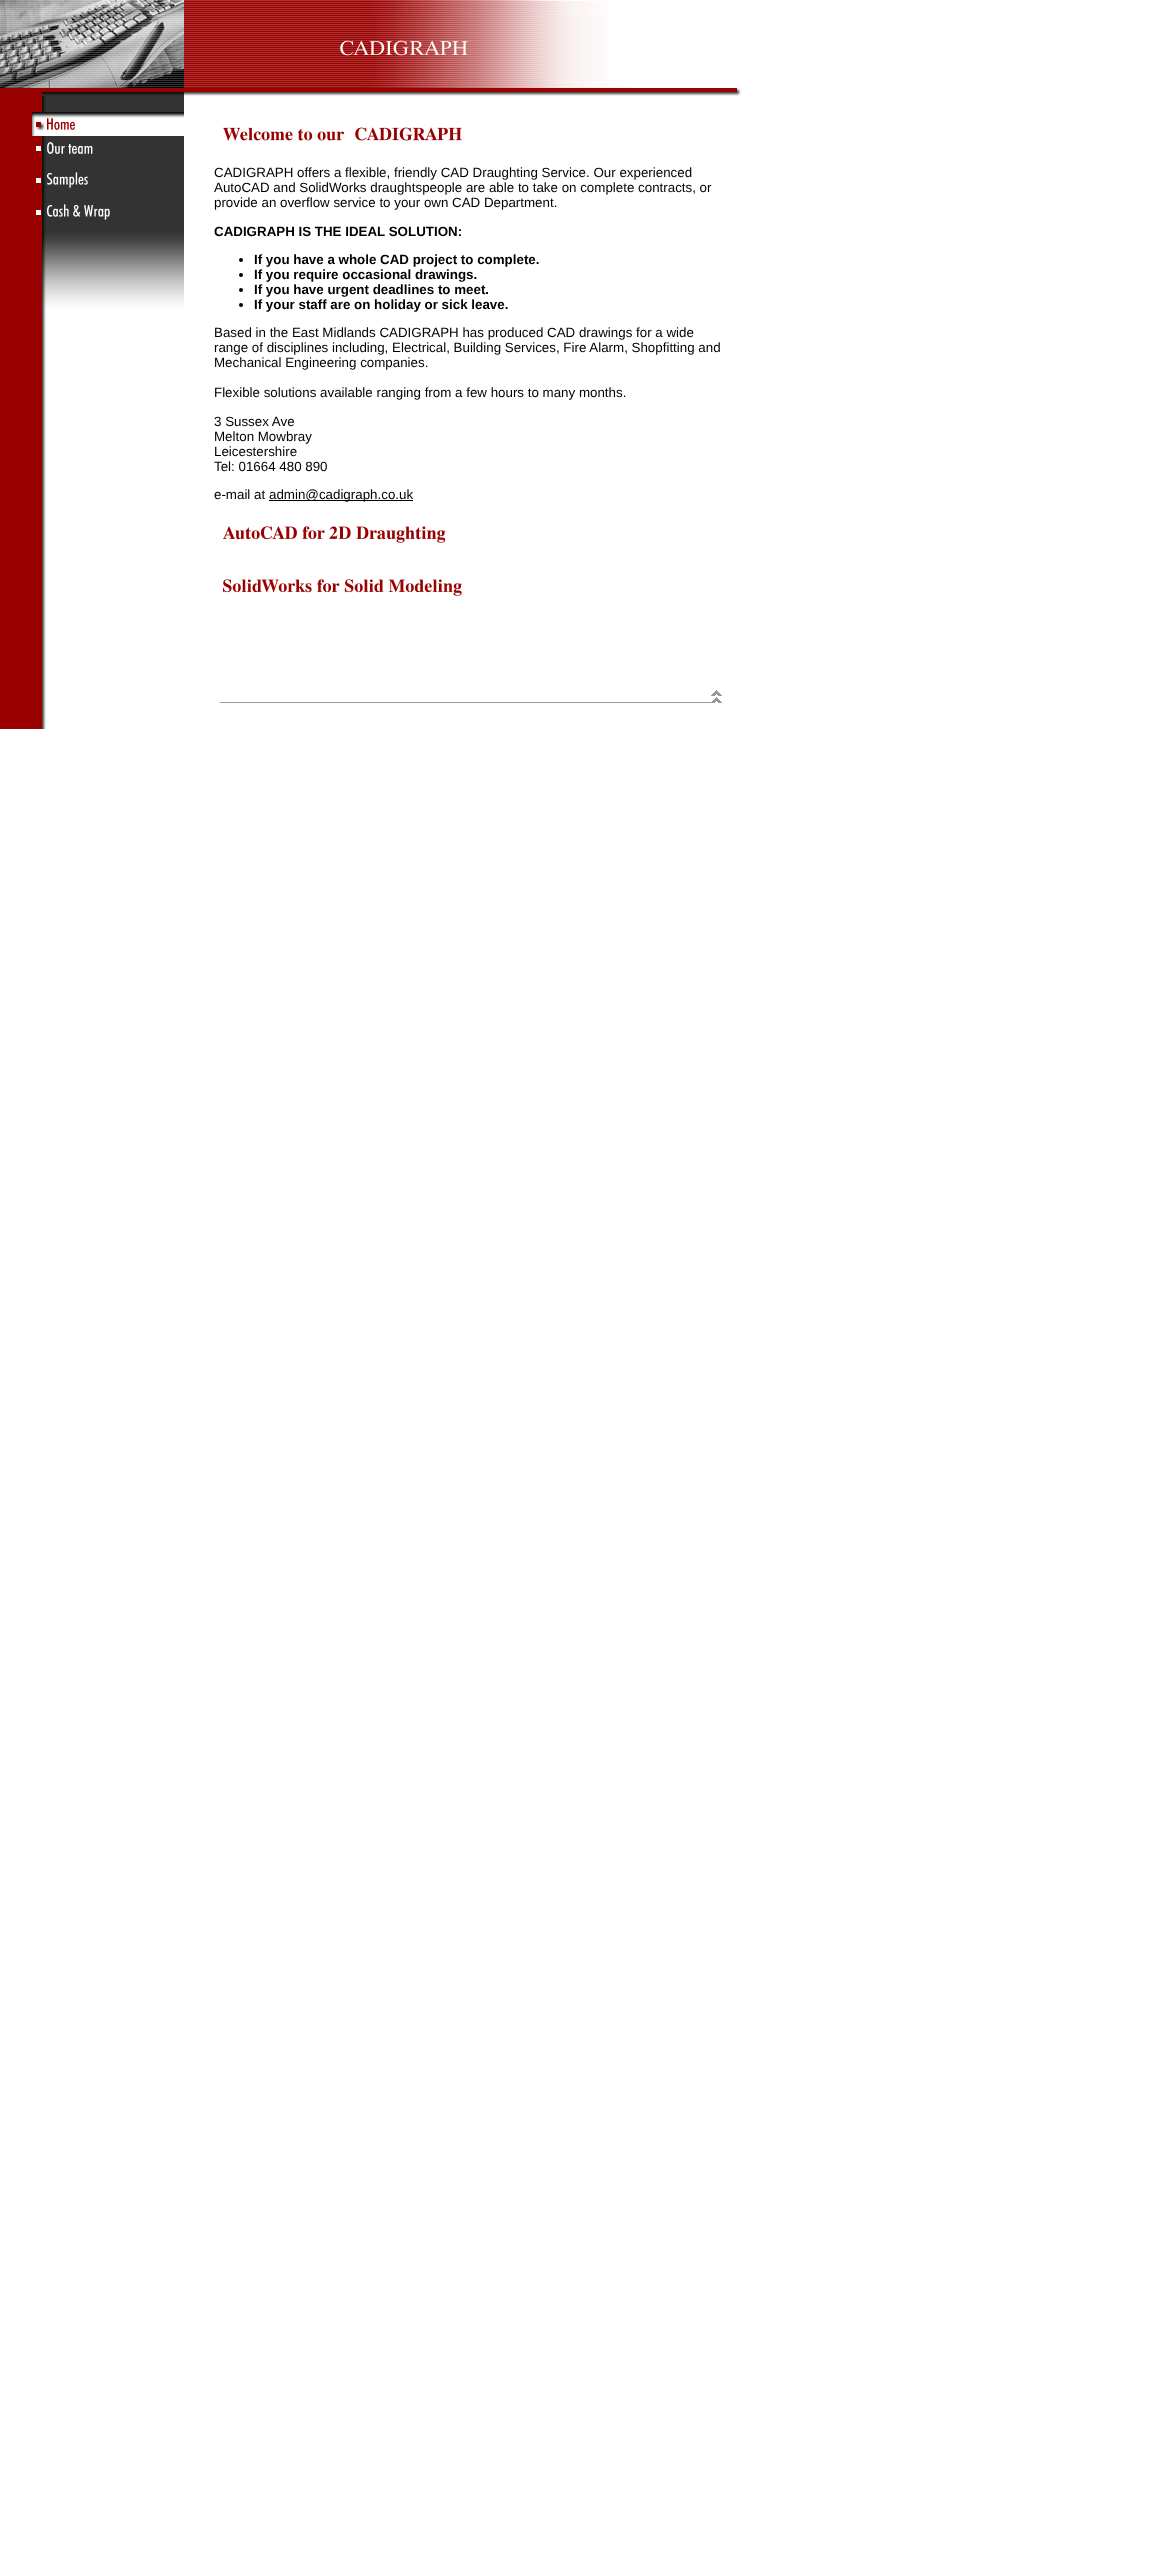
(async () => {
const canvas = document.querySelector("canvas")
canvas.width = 1175
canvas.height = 2549
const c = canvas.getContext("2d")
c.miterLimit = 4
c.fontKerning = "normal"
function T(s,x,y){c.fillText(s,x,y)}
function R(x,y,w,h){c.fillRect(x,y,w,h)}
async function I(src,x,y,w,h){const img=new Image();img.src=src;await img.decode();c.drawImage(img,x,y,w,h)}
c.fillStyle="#fff"
R(0,0,1175,2549)
await I("1.png",0,88,46,641)
await I("2.png",0,0,184,88)
await I("3.png",42,88,142,8)
await I("4.png",42,96,142,16)
await I("5.png",32,112,152,24)
await I("6.png",36,136,148,24)
await I("7.png",42,160,142,8)
await I("8.png",36,168,148,24)
await I("7.png",42,192,142,8)
await I("9.png",36,200,148,24)
await I("7.png",42,224,142,8)
await I("10.png",40,232,144,92)
await I("11.png",184,0,176,16)
await I("12.png",360,0,248,16)
c.fillStyle="#f9f9f9"
R(624,87,8,1)
await I("13.png",184,16,424,64)
await I("14.png",184,80,176,8)
await I("15.png",360,80,264,8)
await I("16.png",184,88,552,8)
await I("17.png",736,88,5,8)
await I("18.png",223,127,239,14)
c.font="13.35px Liberation Sans"
c.fillStyle="#000"
T("CADIGRAPH offers a flexible, friendly CAD Draughting Service. Our experienced",214,177)
T("AutoCAD and SolidWorks draughtspeople are able to take on complete contracts, or",214,192)
T("provide an overflow service to your own CAD Department.",214,207)
c.font="bold 13.35px Liberation Sans"
T("CADIGRAPH IS THE IDEAL SOLUTION:",214,236)
c.beginPath()
c.arc(241,260,2,0,7)
c.fill()
T("If you have a whole CAD project to complete.",254,264)
c.beginPath()
c.arc(241,275,2,0,7)
c.fill()
T("If you require occasional drawings.",254,279)
c.beginPath()
c.arc(241,290,2,0,7)
c.fill()
T("If you have urgent deadlines to meet.",254,294)
c.beginPath()
c.arc(241,305,2,0,7)
c.fill()
T("If your staff are on holiday or sick leave.",254,309)
c.font="13.35px Liberation Sans"
T("Based in the East Midlands CADIGRAPH has produced CAD drawings for a wide",214,337)
T("range of disciplines including, Electrical, Building Services, Fire Alarm, Shopfitting and",214,352)
T("Mechanical Engineering companies.",214,367)
T("Flexible solutions available ranging from a few hours to many months.",214,397)
T("3 Sussex Ave",214,426)
T("Melton Mowbray",214,441)
T("Leicestershire",214,456)
T("Tel: 01664 480 890",214,471)
T("e-mail at",214,499)
R(269,500,144,1)
T("admin@cadigraph.co.uk",269,499)
await I("19.png",223,526,223,17)
await I("20.png",223,579,239,17)
await I("21.png",220,690,502,13)
})()
